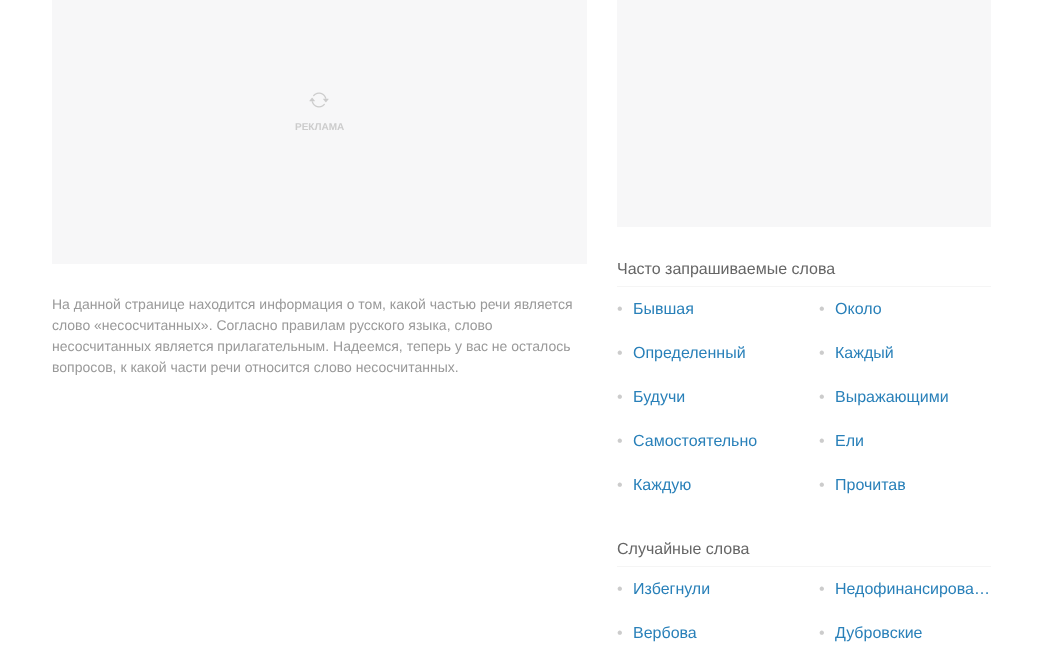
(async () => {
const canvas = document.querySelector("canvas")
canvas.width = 1043
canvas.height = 662
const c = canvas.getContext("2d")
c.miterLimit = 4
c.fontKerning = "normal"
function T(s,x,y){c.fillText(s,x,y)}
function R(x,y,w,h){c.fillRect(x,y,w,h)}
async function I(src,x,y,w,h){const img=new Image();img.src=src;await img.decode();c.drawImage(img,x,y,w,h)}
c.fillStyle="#fff"
R(0,0,1043,662)
c.fillStyle="#f7f7f8"
R(52,0,535,264)
await I("1.png",309,92,20,16)
c.font="bold 10px Liberation Sans"
c.fillStyle="#ccc"
T("РЕКЛАМА",295,130)
c.font="14px Liberation Sans"
c.fillStyle="#999"
T("На данной странице находится информация о том, какой частью речи является",52,309)
T("слово «несосчитанных». Согласно правилам русского языка, слово",52,330)
T("несосчитанных является прилагательным. Надеемся, теперь у вас не осталось",52,351)
T("вопросов, к какой части речи относится слово несосчитанных.",52,372)
c.fillStyle="#f7f7f8"
R(617,0,374,227)
c.fillStyle="#f5f5f5"
R(617,286,374,1)
c.font="16px Liberation Sans"
c.fillStyle="#666"
T("Часто запрашиваемые слова",617,274)
c.fillStyle="#ccc"
T("•",617,314)
c.fillStyle="#2980b9"
T("Бывшая",633,314)
c.fillStyle="#ccc"
T("•",819,314)
c.fillStyle="#2980b9"
T("Около",835,314)
c.fillStyle="#ccc"
T("•",617,358)
c.fillStyle="#2980b9"
T("Определенный",633,358)
c.fillStyle="#ccc"
T("•",819,358)
c.fillStyle="#2980b9"
T("Каждый",835,358)
c.fillStyle="#ccc"
T("•",617,402)
c.fillStyle="#2980b9"
T("Будучи",633,402)
c.fillStyle="#ccc"
T("•",819,402)
c.fillStyle="#2980b9"
T("Выражающими",835,402)
c.fillStyle="#ccc"
T("•",617,446)
c.fillStyle="#2980b9"
T("Самостоятельно",633,446)
c.fillStyle="#ccc"
T("•",819,446)
c.fillStyle="#2980b9"
T("Ели",835,446)
c.fillStyle="#ccc"
T("•",617,490)
c.fillStyle="#2980b9"
T("Каждую",633,490)
c.fillStyle="#ccc"
T("•",819,490)
c.fillStyle="#2980b9"
T("Прочитав",835,490)
c.fillStyle="#f5f5f5"
R(617,566,374,1)
c.fillStyle="#666"
T("Случайные слова",617,554)
c.fillStyle="#ccc"
T("•",617,594)
c.fillStyle="#2980b9"
T("Избегнули",633,594)
c.fillStyle="#ccc"
T("•",819,594)
c.fillStyle="#2980b9"
T("Недофинансирова…",835,594)
c.fillStyle="#ccc"
T("•",617,638)
c.fillStyle="#2980b9"
T("Вербова",633,638)
c.fillStyle="#ccc"
T("•",819,638)
c.fillStyle="#2980b9"
T("Дубровские",835,638)
})()
